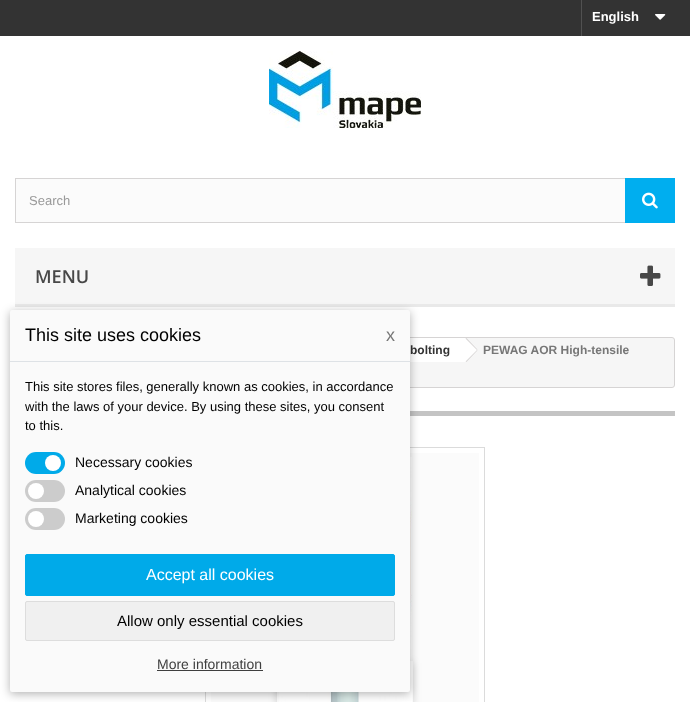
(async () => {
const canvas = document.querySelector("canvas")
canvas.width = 690
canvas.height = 702
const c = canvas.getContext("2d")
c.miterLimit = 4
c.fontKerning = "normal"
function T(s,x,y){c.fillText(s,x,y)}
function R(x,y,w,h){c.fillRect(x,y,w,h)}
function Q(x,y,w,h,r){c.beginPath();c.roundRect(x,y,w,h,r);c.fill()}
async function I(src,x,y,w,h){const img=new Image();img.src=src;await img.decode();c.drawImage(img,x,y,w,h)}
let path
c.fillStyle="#fff"
R(0,0,690,702)
c.fillStyle="#333"
R(0,0,690,36)
c.fillStyle="#515151"
R(581,0,1,36)
c.font="bold 13px Liberation Sans"
c.fillStyle="#fff"
T("English",592,21)
await I("1.png",655,14,11,6)
await I("2.png",269,51,152,77)
c.fillStyle="#fbfbfb"
R(16,179,609,43)
c.strokeStyle="#d6d4d4"
c.strokeRect(15.5,178.5,659,44)
c.font="13px Liberation Sans"
c.fillStyle="#999"
T("Search",29,205)
c.fillStyle="#00aeef"
R(625,178,50,45)
await I("3.png",642,192,16,17)
c.fillStyle="#f6f6f6"
R(15,248,660,56)
c.fillStyle="#e9e9e9"
R(15,304,660,3)
c.font="600 18px Open Sans"
c.fillStyle="#484848"
T("MENU",35,283)
await I("4.png",640,265,21,21)
c.fillStyle="#f6f6f6"
c.beginPath()
c.roundRect(15.5,337.5,659,50,2.5)
c.fill()
c.stroke()
c.fillStyle="#fff"
R(410,338,55,24)
c.font="bold 12px Liberation Sans"
c.fillStyle="#333"
T("bolting",410,354)
c.fillStyle="#fff"
path = new Path2D("M467 338.5l10 10c.5 1 .5 2 0 3l-10 10c-.5 .5-2 .5-3 0l-9.5-10c-1-1-1-2 0-3l9.5-10c1-.5 2.5-.5 3 0z")
c.fill(path)
c.fillStyle="#d6d4d4"
path = new Path2D("M466.5 338l11 11.5l-.5 .5l-11.5-11.5zm10.5 12l.5 .5l-11 11.5l-1-.5z")
c.fill(path)
c.fillStyle="#777"
T("PEWAG AOR High-tensile",483,354)
c.fillStyle="#c4c4c4"
R(410,411,265,5)
c.strokeStyle="#dbdbdb"
c.strokeRect(205.5,447.5,279,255)
c.fillStyle="#fbfbfb"
R(211,453,268,249)
await I("5.png",279,457,133,245)
c.save()
path = new Path2D("M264 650h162v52h-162zm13 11h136v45h-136z")
c.clip(path,"evenodd")
c.fillStyle="#00000029"
c.filter="blur(4px)"
c.beginPath()
c.rect(277,663,136,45)
c.fill()
c.filter="none"
c.restore()
c.fillStyle="#ffffff80"
R(310,661,69,41)
c.fillStyle="#0000004d"
c.filter="blur(5px)"
c.beginPath()
c.roundRect(10,312,400,382,2)
c.fill()
c.filter="none"
c.fillStyle="#fafafa"
Q(10,310,400,382,2)
c.fillStyle="#dee2e6"
R(10,361,400,1)
c.font="18px Liberation Sans"
c.fillStyle="#000"
T("This site uses cookies",25,341)
c.fillStyle="#777"
T("x",386,341)
c.font="13px Liberation Sans"
c.fillStyle="#000"
T("This site stores files, generally known as cookies, in accordance",25,391)
T("with the laws of your device. By using these sites, you consent",25,411)
T("to this.",25,430)
c.fillStyle="#00aae9"
Q(25,452,40,22,11)
c.fillStyle="#fff"
c.beginPath()
c.arc(53,463,8,0,7)
c.fill()
c.font="14px Liberation Sans"
c.fillStyle="#000"
T("Necessary cookies",75,467)
c.fillStyle="#ccc"
Q(25,480,40,22,11)
c.fillStyle="#fff"
c.beginPath()
c.arc(36,491,8,0,7)
c.fill()
c.fillStyle="#000"
T("Analytical cookies",75,495)
c.fillStyle="#ccc"
Q(25,508,40,22,11)
c.fillStyle="#fff"
c.beginPath()
c.arc(36,519,8,0,7)
c.fill()
c.fillStyle="#000"
T("Marketing cookies",75,523)
c.fillStyle="#00aae9"
c.beginPath()
c.roundRect(25.5,554.5,369,41,1.5)
c.fill()
c.strokeStyle="#00aae9"
c.stroke()
c.font="16px Liberation Sans"
c.fillStyle="#fff"
T("Accept all cookies",146,580)
c.fillStyle="#f0f0f0"
c.beginPath()
c.roundRect(25.5,601.5,369,39,1.5)
c.fill()
c.strokeStyle="#ddd"
c.stroke()
c.font="15px Liberation Sans"
c.fillStyle="#000"
T("Allow only essential cookies",117,626)
c.font="14px Liberation Sans"
c.fillStyle="#3f3f3f"
T("More information",157,669)
R(157,670,106,1)
})()
